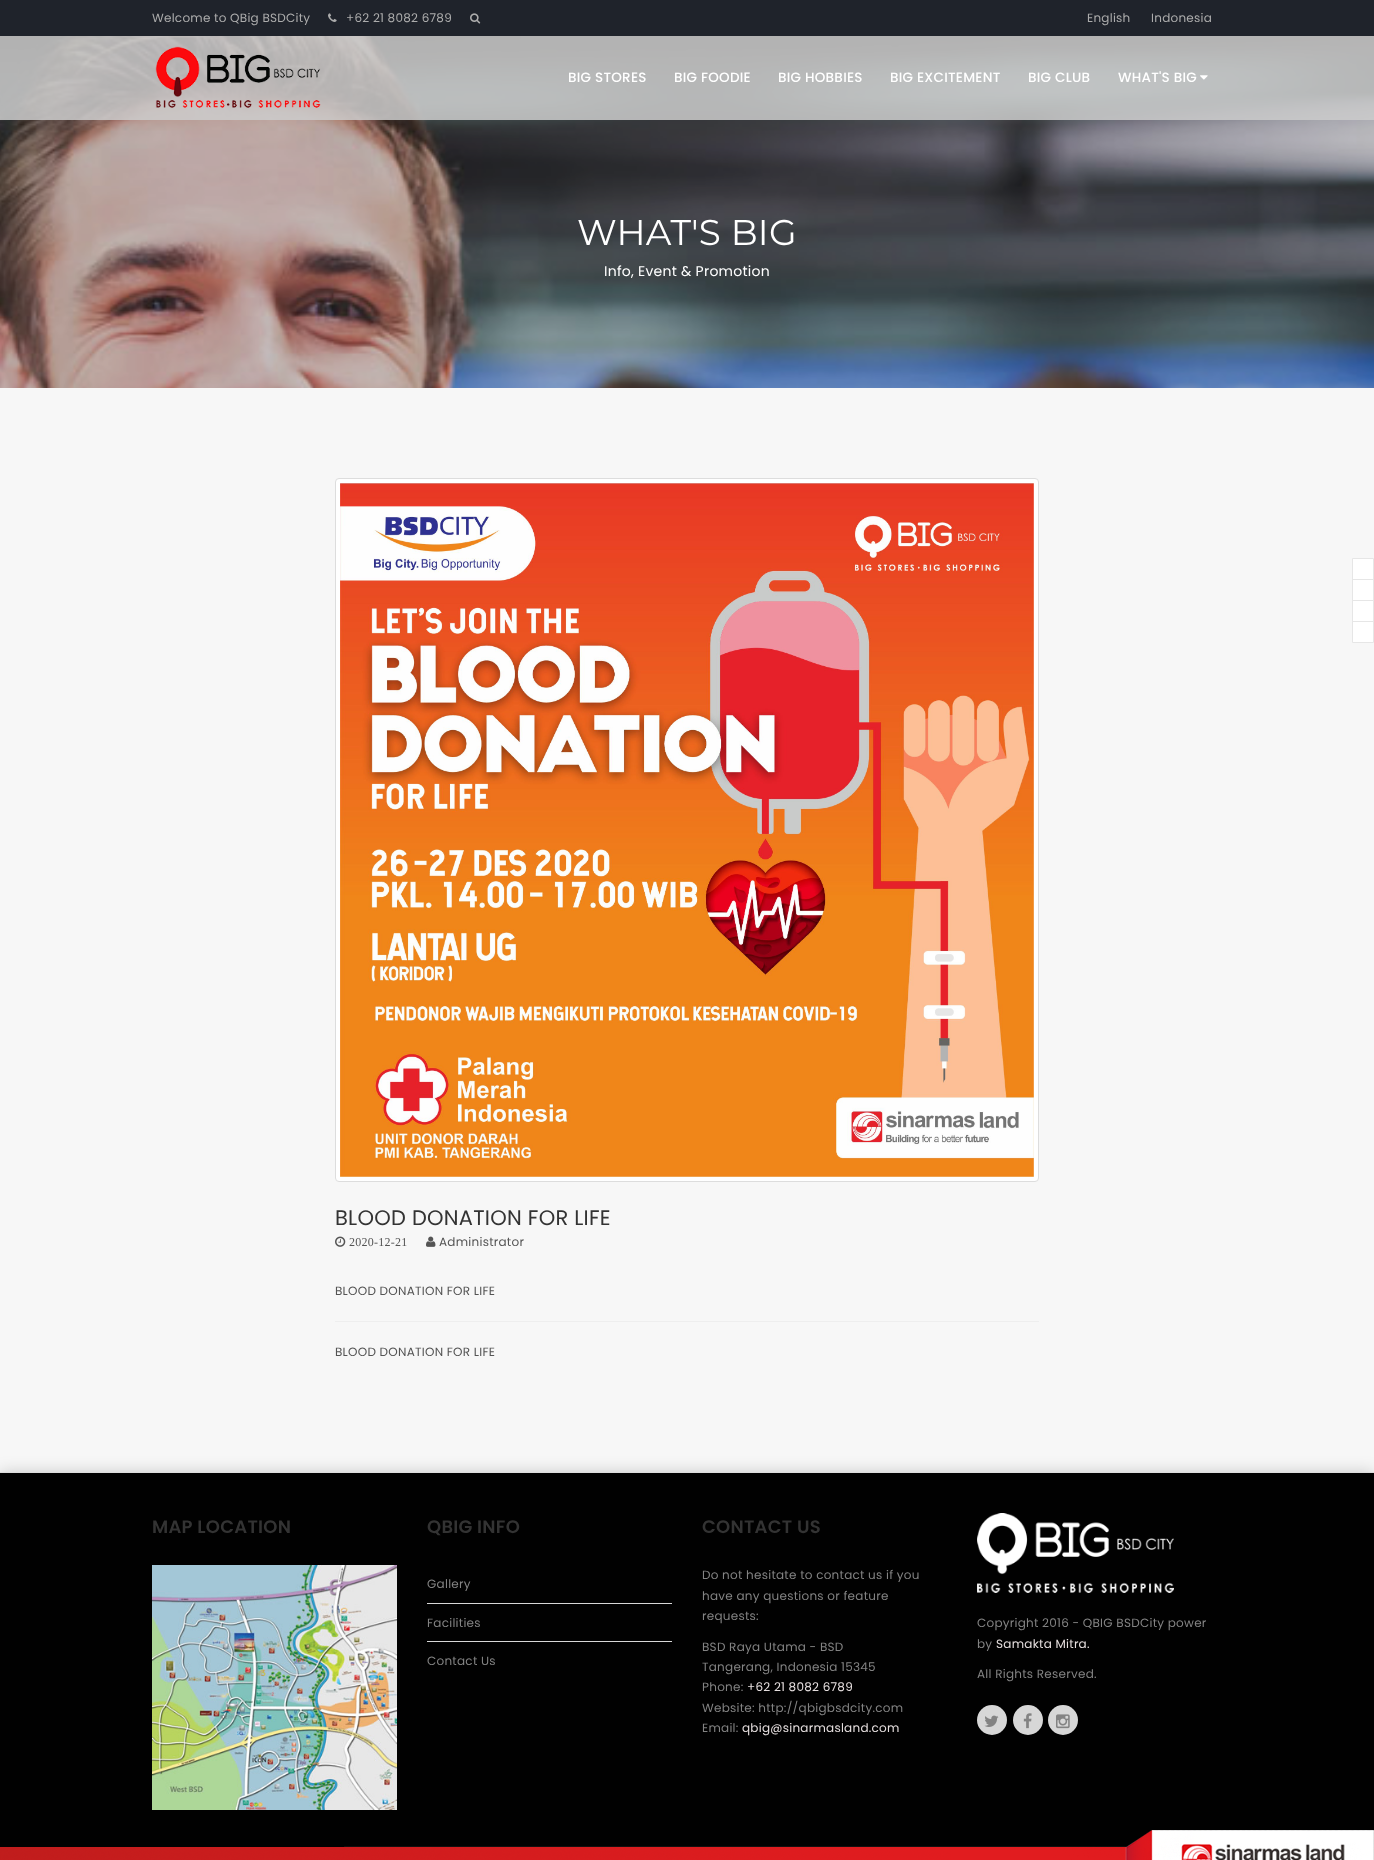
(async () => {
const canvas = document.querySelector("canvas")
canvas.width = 1374
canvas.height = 1860
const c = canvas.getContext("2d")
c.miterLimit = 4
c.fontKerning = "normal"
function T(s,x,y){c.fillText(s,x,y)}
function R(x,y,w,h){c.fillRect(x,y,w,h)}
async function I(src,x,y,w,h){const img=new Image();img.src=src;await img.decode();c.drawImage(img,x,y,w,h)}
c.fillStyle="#f7f7f7"
R(0,0,1374,1860)
c.fillStyle="#1f232b"
R(0,0,1374,36)
c.letterSpacing="0.25px"
c.font="12px Poppins"
c.fillStyle="#acacac"
T("Welcome to QBig BSDCity",152,22)
await I("1.png",328,13,9,9)
T("+62 21 8082 6789",346,22)
await I("2.png",470,13,11,11)
T("English",1087,22)
T("Indonesia",1151,22)
await I("5.png",0,36,1374,352)
c.fillStyle="#ccccccd9"
R(0,36,1374,84)
await I("3.png",155,46,166,62)
c.font="500 13.5px Poppins"
c.fillStyle="#fff"
T("BIG STORES",568,82)
T("BIG FOODIE",674,82)
T("BIG HOBBIES",778,82)
T("BIG EXCITEMENT",890,82)
T("BIG CLUB",1028,82)
T("WHAT'S BIG",1118,82)
await I("4.png",1200,75,8,5)
c.font="35.75px Montserrat"
T("WHAT'S BIG",577,245)
c.font="14px Poppins"
T("Info, Event & Promotion",604,276)
c.beginPath()
c.rect(1352.5,558.5,21,84)
c.fill()
c.strokeStyle="#e6e6e6"
c.stroke()
c.fillStyle="#e6e6e6"
R(1353,579,20,1)
R(1353,600,20,1)
R(1353,621,20,1)
c.fillStyle="#fff"
c.beginPath()
c.roundRect(335.5,478.5,703,703,3.5)
c.fill()
c.strokeStyle="#ddd"
c.stroke()
await I("6.png",340,483,694,694)
c.font="21px Poppins"
c.fillStyle="#333"
T("BLOOD DONATION FOR LIFE",335,1225)
await I("7.png",335,1236,11,11)
c.font="12px Liberation Serif"
c.fillStyle="#545454"
T("2020-12-21",349,1246)
await I("8.png",426,1236,10,11)
c.font="12px Poppins"
T("Administrator",439,1246)
T("BLOOD DONATION FOR LIFE",335,1295)
c.fillStyle="#eee"
R(335,1321,704,1)
c.fillStyle="#545454"
T("BLOOD DONATION FOR LIFE",335,1356)
c.fillStyle="#0000002e"
c.filter="blur(8px)"
c.beginPath()
c.rect(0,1472,1374,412)
c.fill()
c.filter="none"
c.fillStyle="#010101"
R(0,1473,1374,387)
c.fillStyle="#dcdcdc"
R(0,1472,1374,1)
c.font="600 18px Poppins"
c.fillStyle="#333"
T("MAP LOCATION",152,1533)
await I("9.png",152,1565,245,245)
T("QBIG INFO",427,1533)
c.fillStyle="#d7d7d7"
R(427,1603,245,1)
c.font="12px Poppins"
c.fillStyle="#838383"
T("Gallery",427,1588)
c.fillStyle="#d7d7d7"
R(427,1641,245,1)
c.fillStyle="#838383"
T("Facilities",427,1627)
T("Contact Us",427,1665)
c.font="600 18px Poppins"
c.fillStyle="#333"
T("CONTACT US",702,1533)
c.font="12px Poppins"
c.fillStyle="#838383"
T("Do not hesitate to contact us if you",702,1579)
T("have any questions or feature",702,1600)
T("requests:",702,1620)
T("BSD Raya Utama - BSD",702,1651)
T("Tangerang, Indonesia 15345",702,1671)
T("Phone:",702,1691)
c.fillStyle="#e6dfdf"
T("+62 21 8082 6789",747,1691)
c.fillStyle="#838383"
T("Website: http://qbigbsdcity.com",702,1712)
T("Email:",702,1732)
c.fillStyle="#e6dfdf"
T("qbig@sinarmasland.com",742,1732)
await I("10.png",977,1513,197,80)
c.fillStyle="#838383"
T("Copyright 2016 - QBIG BSDCity power",977,1627)
T("by",977,1648)
c.fillStyle="#e6dfdf"
T("Samakta Mitra.",996,1648)
c.fillStyle="#838383"
T("All Rights Reserved.",977,1678)
c.fillStyle="#d7d7d7"
c.beginPath()
c.arc(992,1720,15,0,7)
c.fill()
await I("11.png",984,1715,15,12)
c.beginPath()
c.arc(1028,1720,15,0,7)
c.fill()
await I("12.png",1023,1713,9,16)
c.beginPath()
c.arc(1063,1720,15,0,7)
c.fill()
await I("13.png",1056,1714,14,15)
await I("14.png",0,1830,1374,30)
})()
